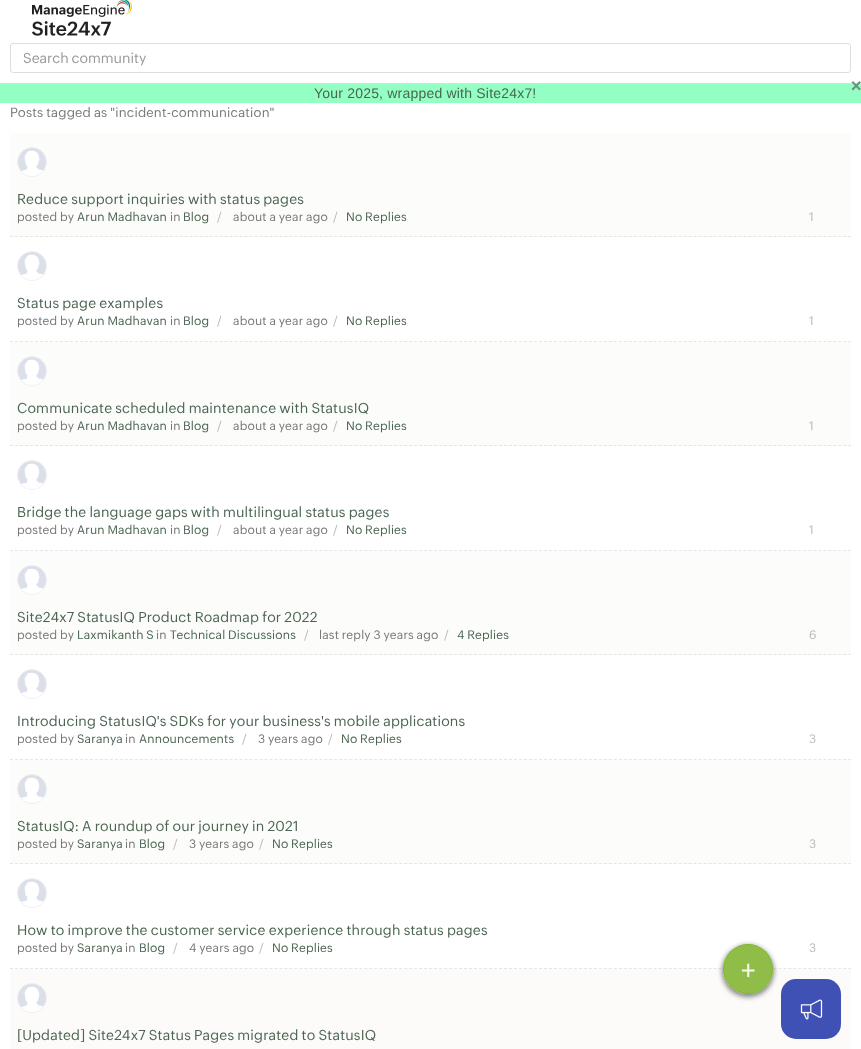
(async () => {
const canvas = document.querySelector("canvas")
canvas.width = 861
canvas.height = 1049
const c = canvas.getContext("2d")
c.miterLimit = 4
c.fontKerning = "normal"
function T(s,x,y){c.fillText(s,x,y)}
function R(x,y,w,h){c.fillRect(x,y,w,h)}
function Q(x,y,w,h,r){c.beginPath();c.roundRect(x,y,w,h,r);c.fill()}
async function I(src,x,y,w,h){const img=new Image();img.src=src;await img.decode();c.drawImage(img,x,y,w,h)}
let path
c.fillStyle="#fff"
R(0,0,861,1049)
c.fillStyle="#ddd"
R(0,83,861,1)
await I("1.png",32,0,100,36)
c.beginPath()
c.roundRect(10.5,43.5,840,29,2.5)
c.strokeStyle="#ddd"
c.stroke()
c.font="14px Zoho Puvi"
c.fillStyle="#999"
T("Search community",23,63)
c.fillStyle="#94ffc3"
R(0,84,861,19)
c.font="bold 21px Zoho Puvi"
c.fillStyle="#68967d"
T("×",851,93)
c.letterSpacing="0.2px"
c.font="14px Liberation Sans"
c.fillStyle="#4b6552"
T("Your 2025, wrapped with Site24x7!",314,98)
c.font="13px Zoho Puvi"
c.fillStyle="#777"
T("Posts tagged as \"incident-communication\"",10,117)
c.fillStyle="#fcfcfa"
R(10,133,841,104)
path = new Path2D("M10 236.5h841")
c.strokeStyle="#e5e5e5"
c.setLineDash([3,1.99])
c.stroke(path)
c.beginPath()
c.arc(32,162,14.5,0,7)
c.strokeStyle="#eee"
c.setLineDash([])
c.stroke()
await I("2.png",18,148,28,28)
c.font="14px Zoho Puvi"
c.fillStyle="#4b6552"
T("Reduce support inquiries with status pages",17,204)
c.font="12px Zoho Puvi"
c.fillStyle="#777"
T("posted by",17,221)
c.fillStyle="#4b6552"
T("Arun Madhavan",77,221)
c.fillStyle="#777"
T("in",170,221)
c.fillStyle="#4b6552"
T("Blog",183,221)
c.fillStyle="#babab9"
T("/",217,221)
c.fillStyle="#777"
T("about a year ago",233,221)
c.fillStyle="#babab9"
T("/",333,221)
c.fillStyle="#4b6552"
T("No Replies",346,221)
c.fillStyle="#babab9"
T("1",809,221)
path = new Path2D("M10 341.5h841")
c.strokeStyle="#e5e5e5"
c.setLineDash([3,1.99])
c.stroke(path)
c.beginPath()
c.arc(32,266,14.5,0,7)
c.strokeStyle="#eee"
c.setLineDash([])
c.stroke()
await I("3.png",18,252,28,28)
c.font="14px Zoho Puvi"
c.fillStyle="#4b6552"
T("Status page examples",17,308)
c.font="12px Zoho Puvi"
c.fillStyle="#777"
T("posted by",17,325)
c.fillStyle="#4b6552"
T("Arun Madhavan",77,325)
c.fillStyle="#777"
T("in",170,325)
c.fillStyle="#4b6552"
T("Blog",183,325)
c.fillStyle="#babab9"
T("/",217,325)
c.fillStyle="#777"
T("about a year ago",233,325)
c.fillStyle="#babab9"
T("/",333,325)
c.fillStyle="#4b6552"
T("No Replies",346,325)
c.fillStyle="#babab9"
T("1",809,325)
c.fillStyle="#fcfcfa"
R(10,342,841,104)
path = new Path2D("M10 445.5h841")
c.strokeStyle="#e5e5e5"
c.setLineDash([3,1.99])
c.stroke(path)
c.beginPath()
c.arc(32,371,14.5,0,7)
c.strokeStyle="#eee"
c.setLineDash([])
c.stroke()
await I("2.png",18,357,28,28)
c.font="14px Zoho Puvi"
c.fillStyle="#4b6552"
T("Communicate scheduled maintenance with StatusIQ",17,413)
c.font="12px Zoho Puvi"
c.fillStyle="#777"
T("posted by",17,430)
c.fillStyle="#4b6552"
T("Arun Madhavan",77,430)
c.fillStyle="#777"
T("in",170,430)
c.fillStyle="#4b6552"
T("Blog",183,430)
c.fillStyle="#babab9"
T("/",217,430)
c.fillStyle="#777"
T("about a year ago",233,430)
c.fillStyle="#babab9"
T("/",333,430)
c.fillStyle="#4b6552"
T("No Replies",346,430)
c.fillStyle="#babab9"
T("1",809,430)
path = new Path2D("M10 550.5h841")
c.strokeStyle="#e5e5e5"
c.setLineDash([3,1.99])
c.stroke(path)
c.beginPath()
c.arc(32,475,14.5,0,7)
c.strokeStyle="#eee"
c.setLineDash([])
c.stroke()
await I("4.png",18,461,28,28)
c.font="14px Zoho Puvi"
c.fillStyle="#4b6552"
T("Bridge the language gaps with multilingual status pages",17,517)
c.font="12px Zoho Puvi"
c.fillStyle="#777"
T("posted by",17,534)
c.fillStyle="#4b6552"
T("Arun Madhavan",77,534)
c.fillStyle="#777"
T("in",170,534)
c.fillStyle="#4b6552"
T("Blog",183,534)
c.fillStyle="#babab9"
T("/",217,534)
c.fillStyle="#777"
T("about a year ago",233,534)
c.fillStyle="#babab9"
T("/",333,534)
c.fillStyle="#4b6552"
T("No Replies",346,534)
c.fillStyle="#babab9"
T("1",809,534)
c.fillStyle="#fcfcfa"
R(10,551,841,104)
path = new Path2D("M10 654.5h841")
c.strokeStyle="#e5e5e5"
c.setLineDash([3,1.99])
c.stroke(path)
c.beginPath()
c.arc(32,580,14.5,0,7)
c.strokeStyle="#eee"
c.setLineDash([])
c.stroke()
await I("2.png",18,566,28,28)
c.font="14px Zoho Puvi"
c.fillStyle="#4b6552"
T("Site24x7 StatusIQ Product Roadmap for 2022",17,622)
c.font="12px Zoho Puvi"
c.fillStyle="#777"
T("posted by",17,639)
c.fillStyle="#4b6552"
T("Laxmikanth S",77,639)
c.fillStyle="#777"
T("in",156,639)
c.fillStyle="#4b6552"
T("Technical Discussions",170,639)
c.fillStyle="#babab9"
T("/",304,639)
c.fillStyle="#777"
T("last reply 3 years ago",319,639)
c.fillStyle="#babab9"
T("/",444,639)
c.fillStyle="#4b6552"
T("4 Replies",457,639)
c.fillStyle="#babab9"
T("6",809,639)
path = new Path2D("M10 759.5h841")
c.strokeStyle="#e5e5e5"
c.setLineDash([3,1.99])
c.stroke(path)
c.beginPath()
c.arc(32,684,14.5,0,7)
c.strokeStyle="#eee"
c.setLineDash([])
c.stroke()
await I("4.png",18,670,28,28)
c.font="14px Zoho Puvi"
c.fillStyle="#4b6552"
T("Introducing StatusIQ's SDKs for your business's mobile applications",17,726)
c.font="12px Zoho Puvi"
c.fillStyle="#777"
T("posted by",17,743)
c.fillStyle="#4b6552"
T("Saranya",77,743)
c.fillStyle="#777"
T("in",125,743)
c.fillStyle="#4b6552"
T("Announcements",139,743)
c.fillStyle="#babab9"
T("/",242,743)
c.fillStyle="#777"
T("3 years ago",258,743)
c.fillStyle="#babab9"
T("/",328,743)
c.fillStyle="#4b6552"
T("No Replies",341,743)
c.fillStyle="#babab9"
T("3",809,743)
c.fillStyle="#fcfcfa"
R(10,760,841,104)
path = new Path2D("M10 863.5h841")
c.strokeStyle="#e5e5e5"
c.setLineDash([3,1.99])
c.stroke(path)
c.beginPath()
c.arc(32,789,14.5,0,7)
c.strokeStyle="#eee"
c.setLineDash([])
c.stroke()
await I("2.png",18,775,28,28)
c.font="14px Zoho Puvi"
c.fillStyle="#4b6552"
T("StatusIQ: A roundup of our journey in 2021",17,831)
c.font="12px Zoho Puvi"
c.fillStyle="#777"
T("posted by",17,848)
c.fillStyle="#4b6552"
T("Saranya",77,848)
c.fillStyle="#777"
T("in",125,848)
c.fillStyle="#4b6552"
T("Blog",139,848)
c.fillStyle="#babab9"
T("/",173,848)
c.fillStyle="#777"
T("3 years ago",189,848)
c.fillStyle="#babab9"
T("/",259,848)
c.fillStyle="#4b6552"
T("No Replies",272,848)
c.fillStyle="#babab9"
T("3",809,848)
path = new Path2D("M10 968.5h841")
c.strokeStyle="#e5e5e5"
c.setLineDash([3,1.99])
c.stroke(path)
c.beginPath()
c.arc(32,893,14.5,0,7)
c.strokeStyle="#eee"
c.setLineDash([])
c.stroke()
await I("4.png",18,879,28,28)
c.font="14px Zoho Puvi"
c.fillStyle="#4b6552"
T("How to improve the customer service experience through status pages",17,935)
c.font="12px Zoho Puvi"
c.fillStyle="#777"
T("posted by",17,952)
c.fillStyle="#4b6552"
T("Saranya",77,952)
c.fillStyle="#777"
T("in",125,952)
c.fillStyle="#4b6552"
T("Blog",139,952)
c.fillStyle="#babab9"
T("/",173,952)
c.fillStyle="#777"
T("4 years ago",189,952)
c.fillStyle="#babab9"
T("/",259,952)
c.fillStyle="#4b6552"
T("No Replies",272,952)
c.fillStyle="#babab9"
T("3",809,952)
c.fillStyle="#fcfbfa"
R(10,969,841,80)
c.beginPath()
c.arc(32,998,14.5,0,7)
c.stroke()
await I("5.png",18,984,28,28)
c.font="14px Zoho Puvi"
c.fillStyle="#4b6552"
T("[Updated] Site24x7 Status Pages migrated to StatusIQ",17,1040)
c.save()
path = new Path2D("M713 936h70v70h-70zm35 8c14 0 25 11 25 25c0 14-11 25-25 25c-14 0-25-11-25-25c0-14 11-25 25-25z")
c.clip(path,"evenodd")
c.fillStyle="#777777e6"
c.filter="blur(2.5px)"
c.beginPath()
c.roundRect(722,945,52,52,26)
c.fill()
c.filter="none"
c.restore()
c.fillStyle="#83b633e6"
c.beginPath()
c.arc(748,969,25,0,7)
c.fill()
c.beginPath()
c.arc(748,969,24.5,0,7)
c.strokeStyle="#83b633e6"
c.stroke()
c.font="28px Zoho Puvi"
c.fillStyle="#f4f8ed"
T("+",741,980)
c.fillStyle="#3f51b5"
Q(781,979,60,60,15)
await I("6.png",800,999,23,21)
})()
